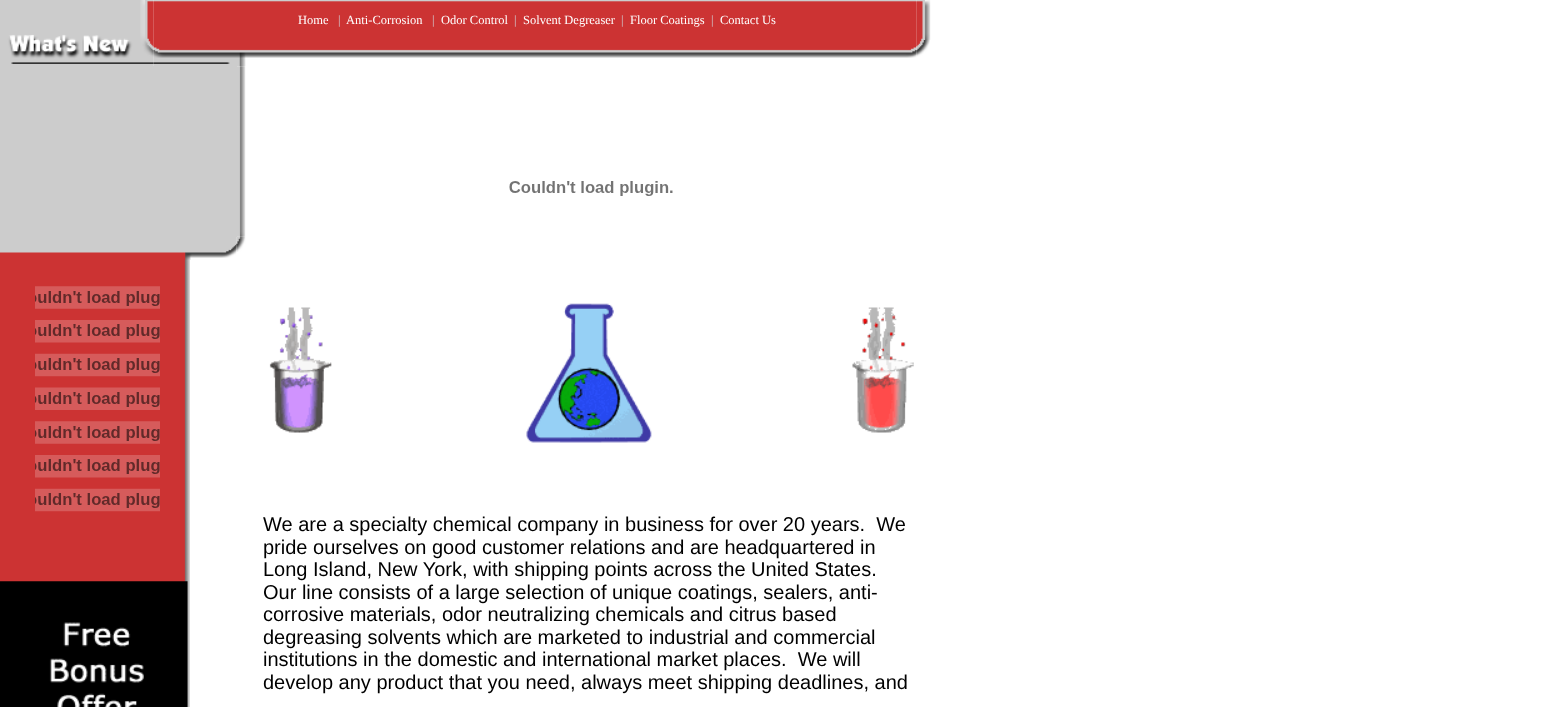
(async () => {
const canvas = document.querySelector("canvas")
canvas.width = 1565
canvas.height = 707
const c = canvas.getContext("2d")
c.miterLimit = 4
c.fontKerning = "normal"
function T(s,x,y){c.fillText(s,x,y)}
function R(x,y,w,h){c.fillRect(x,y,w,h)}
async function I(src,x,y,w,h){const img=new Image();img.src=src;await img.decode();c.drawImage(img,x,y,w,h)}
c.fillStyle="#fff"
R(0,0,1565,707)
await I("2.png",153,0,764,40)
await I("1.png",0,0,154,40)
c.font="12.5px Liberation Serif"
T("Home",298,24)
c.fillStyle="#d0ccd0"
T("|",338,24)
c.fillStyle="#fff"
T("Anti-Corrosion",346,24)
c.fillStyle="#d0ccd0"
T("|",432,24)
c.fillStyle="#fff"
T("Odor Control",441,24)
c.fillStyle="#d0ccd0"
T("|",514,24)
c.fillStyle="#fff"
T("Solvent Degreaser",523,24)
c.fillStyle="#d0ccd0"
T("|",621,24)
c.fillStyle="#fff"
T("Floor Coatings",630,24)
c.fillStyle="#d0ccd0"
T("|",711,24)
c.fillStyle="#fff"
T("Contact Us",720,24)
await I("3.png",916,0,15,40)
await I("4.png",0,40,154,26)
c.fillStyle="#ccc"
R(0,66,237,171)
await I("5.png",153,40,764,27)
await I("6.png",916,40,14,17)
await I("7.png",0,237,237,23)
await I("15.png",237,66,9,171)
await I("8.png",236,236,10,16)
await I("9.png",0,260,190,447)
await I("10.png",35,286,125,23)
await I("11.png",35,320,125,23)
await I("12.png",35,353,125,24)
await I("13.png",35,387,125,23)
await I("10.png",35,421,125,23)
await I("11.png",35,455,125,23)
await I("12.png",35,488,125,24)
await I("14.png",0,581,188,126)
await I("16.png",509,181,164,15)
await I("17.png",269,307,63,126)
await I("18.png",526,303,126,140)
await I("19.png",852,307,62,126)
c.font="20px Liberation Sans"
c.fillStyle="#000"
T("We are a specialty chemical company in business for over 20 years.  We",263,531)
T("pride ourselves on good customer relations and are headquartered in",263,554)
T("Long Island, New York, with shipping points across the United States.",263,576)
T("Our line consists of a large selection of unique coatings, sealers, anti-",263,599)
T("corrosive materials, odor neutralizing chemicals and citrus based",263,621)
T("degreasing solvents which are marketed to industrial and commercial",263,644)
T("institutions in the domestic and international market places.  We will",263,666)
T("develop any product that you need, always meet shipping deadlines, and",263,689)
})()
